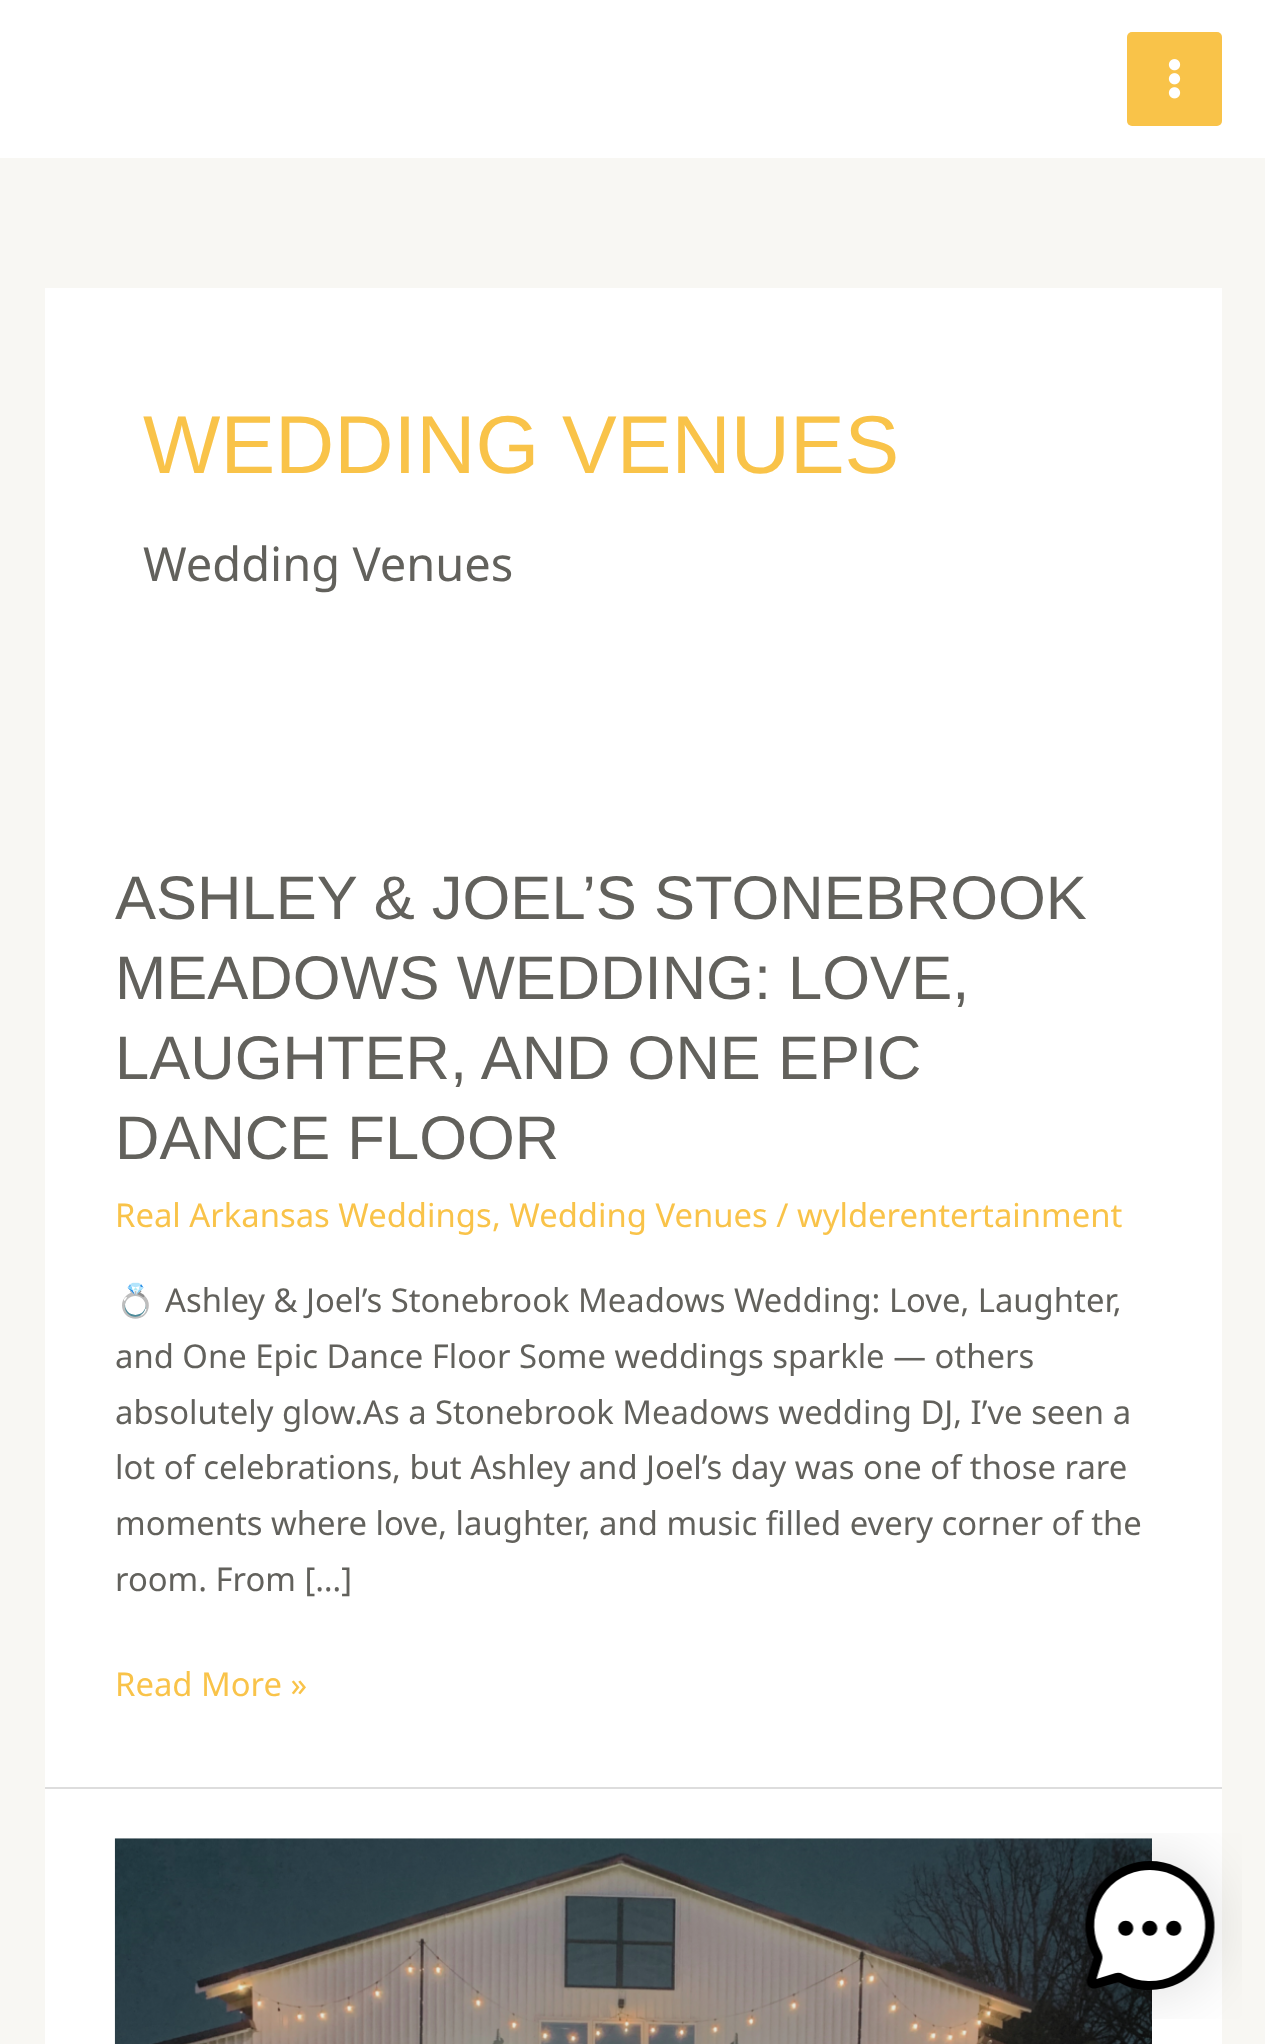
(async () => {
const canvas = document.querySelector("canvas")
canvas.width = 1265
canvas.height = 2044
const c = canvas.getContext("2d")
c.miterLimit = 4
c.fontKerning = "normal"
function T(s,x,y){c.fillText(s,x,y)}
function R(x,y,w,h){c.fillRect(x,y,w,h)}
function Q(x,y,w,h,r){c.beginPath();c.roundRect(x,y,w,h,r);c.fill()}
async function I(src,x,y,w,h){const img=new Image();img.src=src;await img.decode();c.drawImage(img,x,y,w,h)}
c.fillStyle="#f8f7f3"
R(0,0,1265,2044)
c.fillStyle="#fff"
R(0,0,1265,158)
c.fillStyle="#f9c349"
Q(1127,32,95,94,5)
await I("1.png",1168,59,13,40)
c.fillStyle="#fff"
R(45,288,1177,1499)
c.font="82px Liberation Sans"
c.fillStyle="#f9c349"
T("WEDDING VENUES",143,473)
c.font="47px Noto Sans"
c.fillStyle="#62615c"
T("Wedding Venues",143,581)
c.fillStyle="#ddd"
R(45,1787,1177,2)
c.font="61.5px Liberation Sans"
c.fillStyle="#62615c"
T("ASHLEY & JOEL’S STONEBROOK",115,919)
T("MEADOWS WEDDING: LOVE,",115,999)
T("LAUGHTER, AND ONE EPIC",115,1079)
T("DANCE FLOOR",115,1159)
c.font="32.8px Noto Sans"
c.fillStyle="#f9c349"
T("Real Arkansas Weddings",115,1227)
T(", Wedding Venues / wylderentertainment",492,1227)
c.font="32.8px Noto Color Emoji"
c.fillStyle="#62615c"
T("💍",115,1312)
c.font="32.8px Noto Sans"
T("Ashley & Joel’s Stonebrook Meadows Wedding: Love, Laughter,",165,1312)
T("and One Epic Dance Floor Some weddings sparkle — others",115,1368)
T("absolutely glow.As a Stonebrook Meadows wedding DJ, I’ve seen a",115,1424)
T("lot of celebrations, but Ashley and Joel’s day was one of those rare",115,1479)
T("moments where love, laughter, and music filled every corner of the",115,1535)
T("room. From […]",115,1591)
c.fillStyle="#f9c349"
T("Read More »",115,1696)
c.fillStyle="#fff"
R(45,1789,1177,255)
await I("2.png",114,1838,1038,206)
await I("3.png",1085,1833,157,186)
})()
